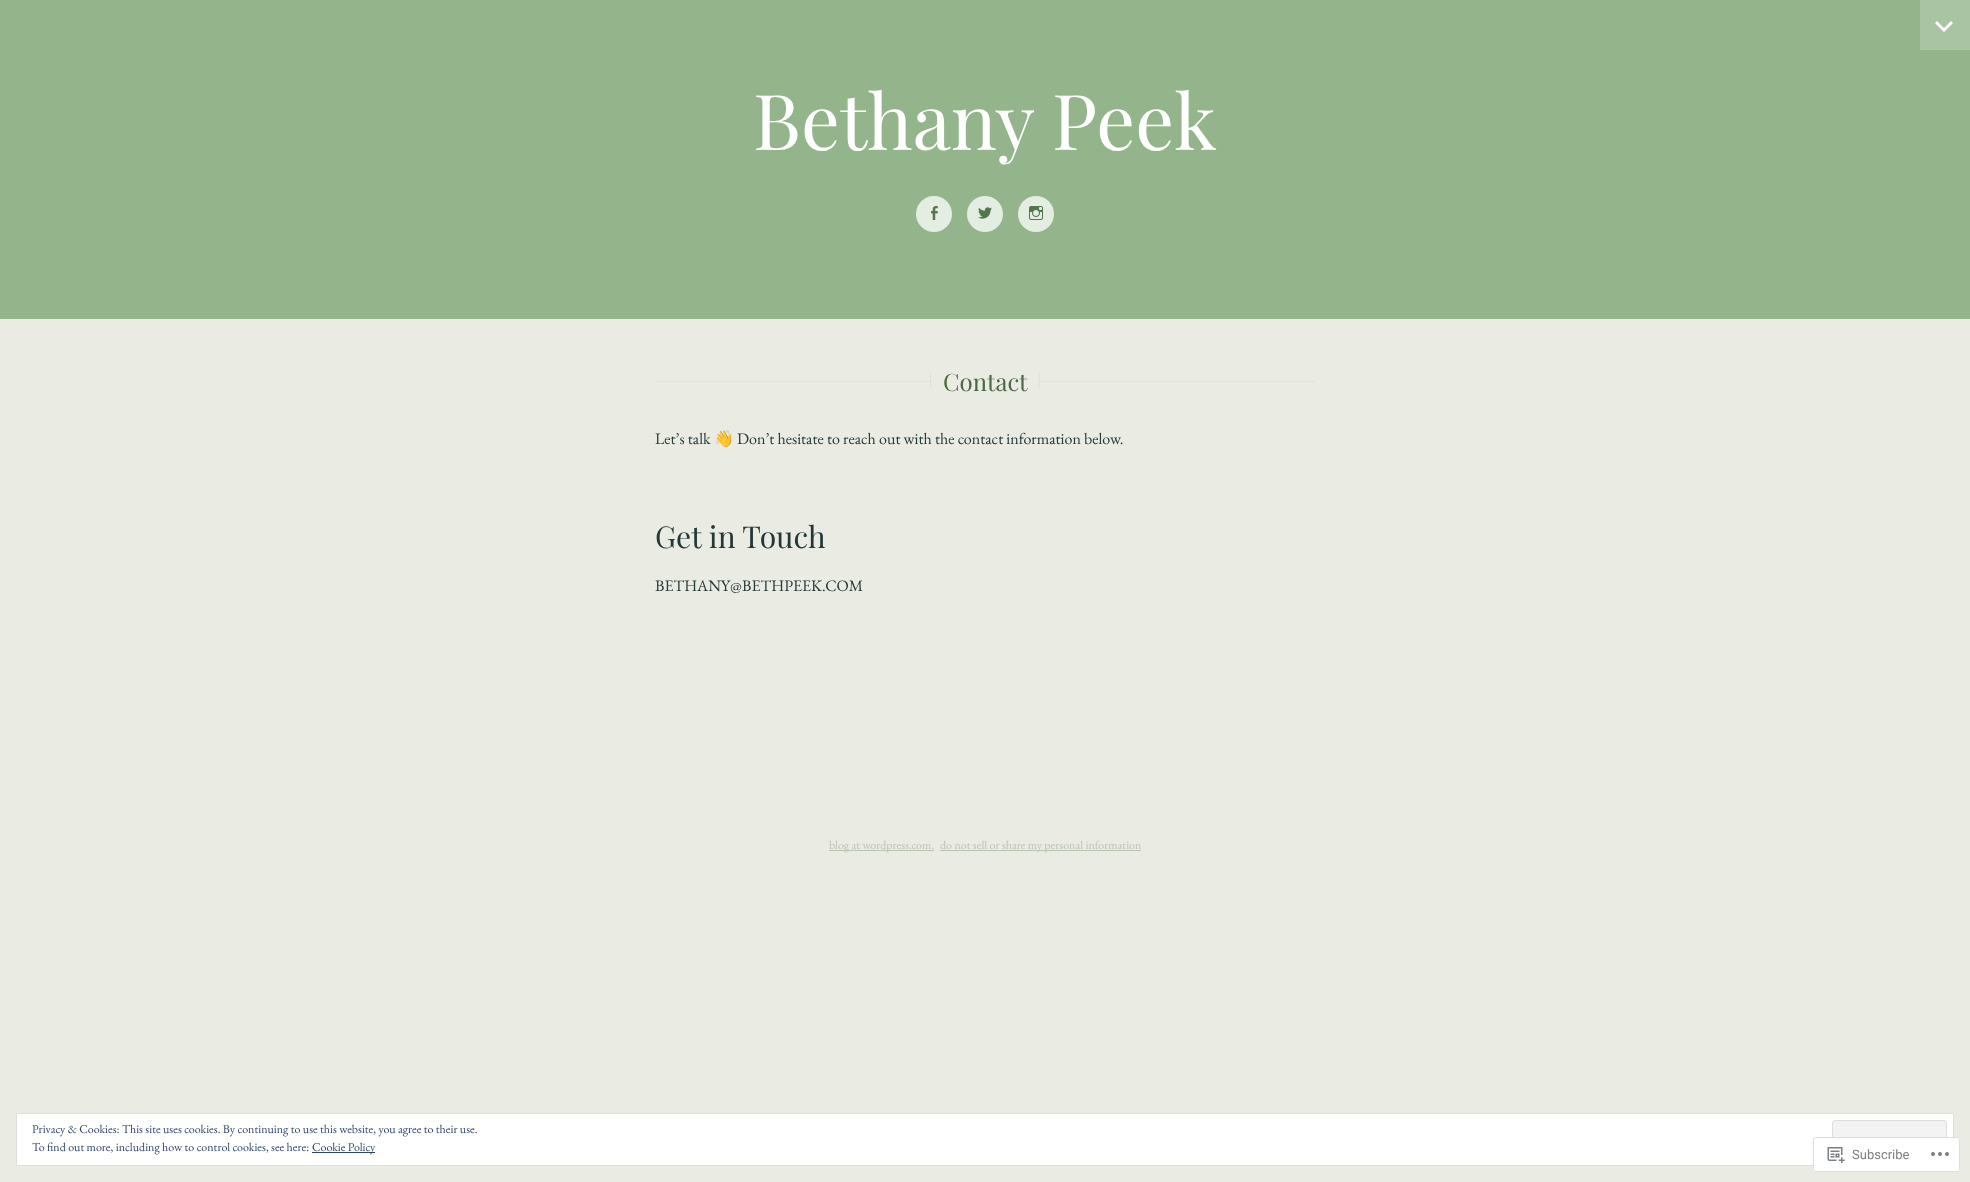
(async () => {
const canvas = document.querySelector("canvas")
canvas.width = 1970
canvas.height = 1182
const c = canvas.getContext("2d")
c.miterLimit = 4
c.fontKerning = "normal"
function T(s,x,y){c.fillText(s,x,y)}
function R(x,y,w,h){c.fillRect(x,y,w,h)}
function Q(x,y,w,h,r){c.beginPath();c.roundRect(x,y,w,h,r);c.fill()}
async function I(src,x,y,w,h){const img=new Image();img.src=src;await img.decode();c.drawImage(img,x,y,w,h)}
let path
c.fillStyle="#eaebe3"
R(0,0,1970,1182)
c.fillStyle="#dfe4d8"
R(1039,367,1,28)
R(930,367,1,28)
c.fillStyle="#94b58b"
R(0,0,1970,319)
c.fillStyle="#a9c4a2"
R(1920,0,50,50)
c.fillStyle="#fff"
path = new Path2D("M1951 21l2 2l-9 9l-9-9l2-2l7 7z")
c.fill(path)
c.font="77px Playfair Display"
T("Bethany Peek",753,150)
c.fillStyle="#e4ede2"
c.beginPath()
c.arc(934,214,18,0,7)
c.fill()
await I("1.png",931,206,7,14)
c.beginPath()
c.arc(985,214,18,0,7)
c.fill()
await I("2.png",978,207,14,12)
c.beginPath()
c.arc(1036,214,18,0,7)
c.fill()
await I("3.png",1029,206,14,14)
c.fillStyle="#dfe4d8"
R(655,381,660,1)
c.fillStyle="#eaebe3"
R(931,381,108,1)
R(930,367,1,6)
R(930,389,1,6)
c.font="24px Playfair Display"
c.fillStyle="#4b6943"
T("Contact",943,391)
c.fillStyle="#eaebe3"
R(1039,367,1,6)
R(1039,389,1,6)
c.fillStyle="#d6dfcf"
R(1039,381,1,1)
R(930,381,1,1)
c.font="16px EB Garamond"
c.fillStyle="#233838"
T("Let’s talk",655,444)
c.font="16px Noto Color Emoji"
T("👋",714,444)
c.font="16px EB Garamond"
T("Don’t hesitate to reach out with the contact information below.",737,444)
c.font="30px Playfair Display"
T("Get in Touch",655,548)
c.font="16px EB Garamond"
T("BETHANY@BETHPEEK.COM",655,591)
c.fillStyle="#bac4b3"
R(829,850,105,1)
c.font="12px EB Garamond"
T("blog at wordpress.com.",829,849)
R(940,850,201,1)
T("do not sell or share my personal information",940,849)
c.fillStyle="#fff"
c.beginPath()
c.rect(16.5,1113.5,1937,52)
c.fill()
c.strokeStyle="#dedede"
c.stroke()
c.fillStyle="#2e4467"
T("Privacy & Cookies: This site uses cookies. By continuing to use this website, you agree to their use.",32,1133)
c.fillStyle="#f3f3f3"
c.beginPath()
c.roundRect(1832.5,1120.5,114,38,2.5)
c.fill()
c.stroke()
c.fillStyle="#2e4467"
T("To find out more, including how to control cookies, see here:",32,1151)
R(312,1152,63,1)
T("Cookie Policy",312,1151)
c.fillStyle="#fffffffa"
Q(1813,1137,147,35,3)
c.beginPath()
c.roundRect(1813.5,1137.5,146,34,2.5)
c.strokeStyle="#dcdcdefa"
c.stroke()
await I("4.png",1827,1147,18,17)
c.font="13px Roboto"
c.fillStyle="#7b7f84"
T("Subscribe",1852,1159)
await I("5.png",1931,1152,18,4)
})()
